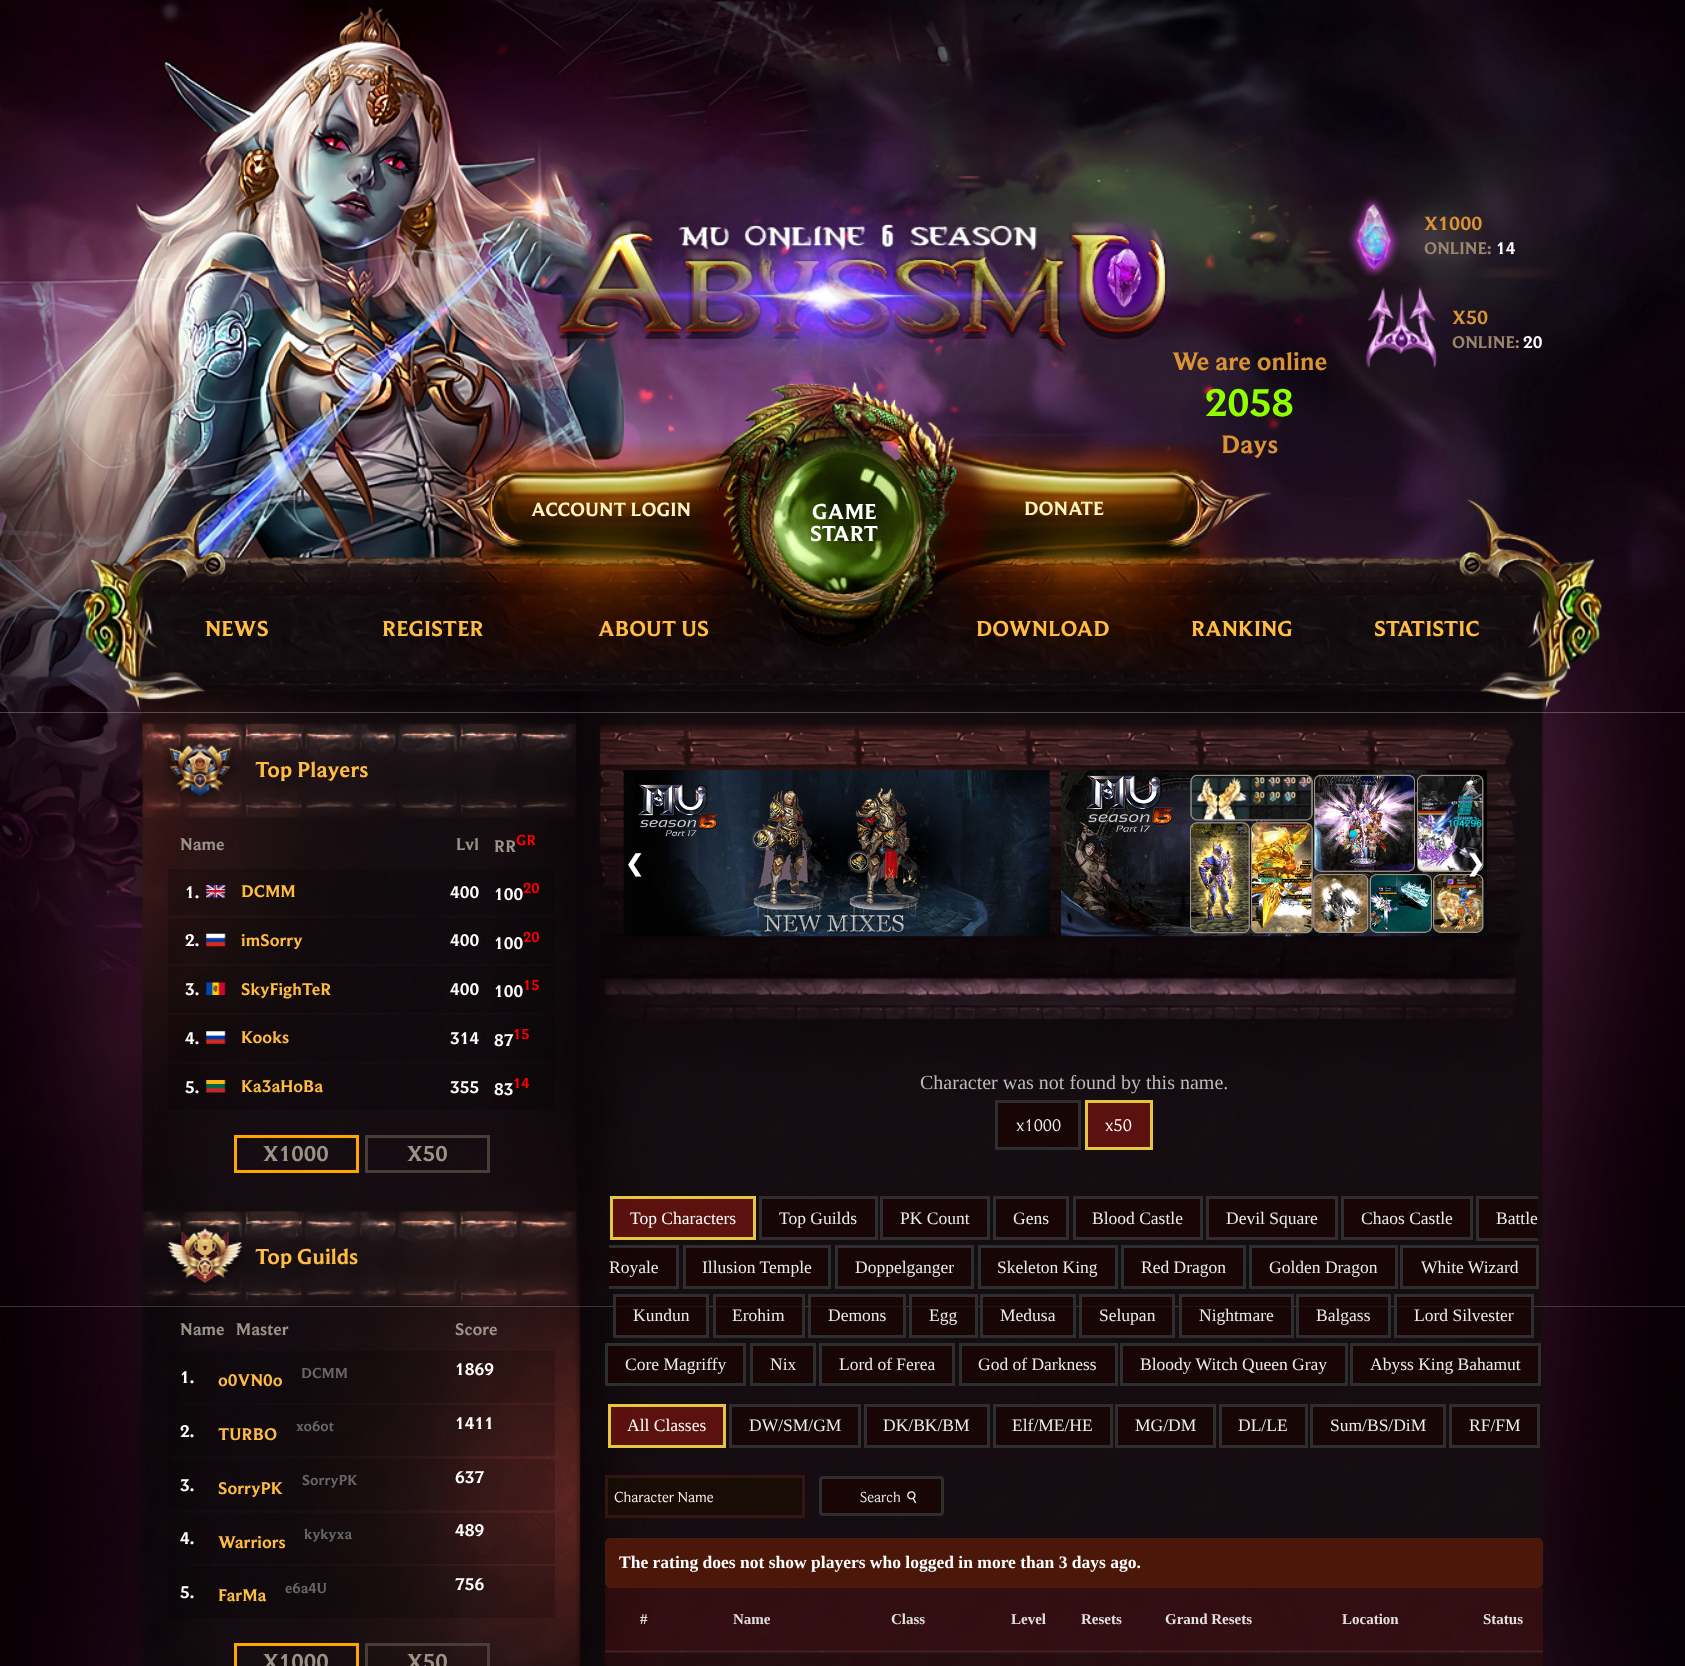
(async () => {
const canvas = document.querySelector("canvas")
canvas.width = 1685
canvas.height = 1666
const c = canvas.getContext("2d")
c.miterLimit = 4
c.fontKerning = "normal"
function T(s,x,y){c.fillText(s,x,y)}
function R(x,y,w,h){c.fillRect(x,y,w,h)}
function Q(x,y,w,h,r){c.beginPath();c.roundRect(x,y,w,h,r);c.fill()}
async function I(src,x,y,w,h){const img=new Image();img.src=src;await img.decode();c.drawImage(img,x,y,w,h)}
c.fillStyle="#fff"
R(0,0,1685,1666)
await I("1.png",0,0,1685,1666)
await I("2.png",553,214,614,156)
await I("3.png",1348,196,52,80)
c.font="bold 20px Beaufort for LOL"
c.fillStyle="#d99334"
T("X1000",1424,230)
c.font="bold 17.5px Beaufort for LOL"
c.fillStyle="#9a866e"
T("ONLINE:",1424,254)
c.fillStyle="#fff"
T("14",1496,254)
await I("4.png",1366,287,71,83)
c.font="bold 20px Beaufort for LOL"
c.fillStyle="#d99334"
T("X50",1452,324)
c.font="bold 17.5px Beaufort for LOL"
c.fillStyle="#9a866e"
T("ONLINE:",1452,348)
c.fillStyle="#fff"
T("20",1523,348)
c.font="bold 26.25px Beaufort for LOL"
c.fillStyle="#d99334"
T("We are online",1172,370)
c.font="bold 40px Beaufort for LOL"
c.fillStyle="#90ff00"
T("2058",1205,416)
c.font="bold 26.25px Beaufort for LOL"
c.fillStyle="#d99334"
T("Days",1221,453)
await I("5.png",492,453,256,114)
c.font="bold 20px Beaufort for LOL"
c.fillStyle="#fff3be"
T("ACCOUNT LOGIN",531,516)
await I("6.png",772,451,143,143)
c.font="bold 22.5px Beaufort for LOL"
c.fillStyle="#fff"
T("GAME",812,519)
T("START",810,541)
await I("7.png",927,452,272,113)
c.font="bold 20px Beaufort for LOL"
c.fillStyle="#fff3be"
T("DONATE",1024,515)
c.font="bold 22.5px Beaufort for LOL"
c.fillStyle="#ffbc43"
T("NEWS",205,636)
T("REGISTER",382,636)
T("ABOUT US",598,636)
T("DOWNLOAD",976,636)
T("RANKING",1191,636)
T("STATISTIC",1374,636)
await I("8.png",163,734,73,68)
T("Top Players",255,777)
c.font="bold 17.5px Beaufort for LOL"
c.fillStyle="#9b9288"
T("Name",180,850)
T("Lvl",456,850)
T("RR",494,852)
c.font="bold 15px Beaufort for LOL"
c.fillStyle="#f00"
T("GR",516,845)
c.fillStyle="#00000033"
R(168,869,387,46)
c.font="bold 17.5px Beaufort for LOL"
c.fillStyle="#fff"
T("1.",185,898)
await I("9.png",206,885,20,13)
c.fillStyle="#ffbc43"
T("DCMM",241,897)
c.fillStyle="#fff"
T("400",450,898)
T("100",494,900)
c.font="bold 15px Beaufort for LOL"
c.fillStyle="#f00"
T("20",523,893)
c.fillStyle="#00000033"
R(168,918,387,46)
c.font="bold 17.5px Beaufort for LOL"
c.fillStyle="#fff"
T("2.",185,946)
await I("10.png",206,933,20,14)
c.fillStyle="#ffbc43"
T("imSorry",241,946)
c.fillStyle="#fff"
T("400",450,946)
T("100",494,949)
c.font="bold 15px Beaufort for LOL"
c.fillStyle="#f00"
T("20",523,942)
c.fillStyle="#00000033"
R(168,966,387,47)
c.font="bold 17.5px Beaufort for LOL"
c.fillStyle="#fff"
T("3.",185,995)
await I("11.png",206,982,20,13)
c.fillStyle="#ffbc43"
T("SkyFighTeR",241,995)
c.fillStyle="#fff"
T("400",450,995)
T("100",494,997)
c.font="bold 15px Beaufort for LOL"
c.fillStyle="#f00"
T("15",523,990)
c.fillStyle="#00000033"
R(168,1015,387,46)
c.font="bold 17.5px Beaufort for LOL"
c.fillStyle="#fff"
T("4.",185,1044)
await I("12.png",206,1031,20,13)
c.fillStyle="#ffbc43"
T("Kooks",241,1043)
c.fillStyle="#fff"
T("314",450,1044)
T("87",494,1046)
c.font="bold 15px Beaufort for LOL"
c.fillStyle="#f00"
T("15",513,1039)
c.fillStyle="#00000033"
R(168,1064,387,46)
c.font="bold 17.5px Beaufort for LOL"
c.fillStyle="#fff"
T("5.",185,1093)
await I("13.png",206,1080,20,13)
c.fillStyle="#ffbc43"
T("Ka3aHoBa",241,1092)
c.fillStyle="#fff"
T("355",450,1093)
T("83",494,1095)
c.font="bold 15px Beaufort for LOL"
c.fillStyle="#f00"
T("14",513,1088)
c.strokeStyle="#ffa500"
c.lineWidth=3
c.strokeRect(235.5,1136.5,122,35)
c.font="bold 22.5px Beaufort for LOL"
c.fillStyle="#9b9288"
T("X1000",263,1161)
c.strokeStyle="#483d37"
c.strokeRect(366.5,1136.5,122,35)
T("X50",407,1161)
await I("14.png",167,1221,76,63)
c.fillStyle="#ffbc43"
T("Top Guilds",255,1264)
c.font="bold 17.5px Beaufort for LOL"
c.fillStyle="#9b9288"
T("Name   Master",180,1335)
T("Score",455,1335)
c.fillStyle="#00000033"
R(168,1351,387,52)
c.fillStyle="#fff"
T("1.",180,1383)
c.fillStyle="#ffbc43"
T("o0VN0o",218,1386)
c.font="bold 15px Beaufort for LOL"
c.fillStyle="#666"
T("DCMM",301,1378)
c.font="bold 17.5px Beaufort for LOL"
c.fillStyle="#fff"
T("1869",455,1375)
c.fillStyle="#00000033"
R(168,1405,387,51)
c.fillStyle="#fff"
T("2.",180,1437)
c.font="bold 15px Beaufort for LOL"
c.fillStyle="#666"
T("xo6ot",296,1431)
c.font="bold 17.5px Beaufort for LOL"
c.fillStyle="#ffbc43"
T("TURBO",218,1440)
c.fillStyle="#fff"
T("1411",455,1429)
c.fillStyle="#00000033"
R(168,1459,387,51)
c.fillStyle="#fff"
T("3.",180,1491)
c.fillStyle="#ffbc43"
T("SorryPK",218,1494)
c.font="bold 15px Beaufort for LOL"
c.fillStyle="#666"
T("SorryPK",302,1485)
c.font="bold 17.5px Beaufort for LOL"
c.fillStyle="#fff"
T("637",455,1483)
c.fillStyle="#00000033"
R(168,1513,387,51)
c.fillStyle="#fff"
T("4.",180,1544)
c.fillStyle="#ffbc43"
T("Warriors",218,1548)
c.font="bold 15px Beaufort for LOL"
c.fillStyle="#666"
T("kykyxa",304,1539)
c.font="bold 17.5px Beaufort for LOL"
c.fillStyle="#fff"
T("489",455,1536)
c.fillStyle="#00000033"
R(168,1566,387,52)
c.fillStyle="#fff"
T("5.",180,1598)
c.fillStyle="#ffbc43"
T("FarMa",218,1601)
c.font="bold 15px Beaufort for LOL"
c.fillStyle="#666"
T("e6a4U",285,1593)
c.font="bold 17.5px Beaufort for LOL"
c.fillStyle="#fff"
T("756",455,1590)
c.strokeStyle="#ffa500"
c.strokeRect(235.5,1644.5,122,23)
c.font="bold 22.5px Beaufort for LOL"
c.fillStyle="#9b9288"
T("X1000",263,1669)
c.strokeStyle="#483d37"
c.strokeRect(366.5,1644.5,122,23)
T("X50",407,1669)
await I("15.png",623,770,864,167)
c.font="bold 22.5px DejaVu Sans"
c.fillStyle="#fff"
T("❮",625,871)
T("❯",1466,871)
c.font="20px Liberation Serif"
c.fillStyle="#bbb"
T("Character was not found by this name.",920,1089)
c.fillStyle="#1a0404bf"
c.beginPath()
c.rect(996.5,1101.5,83,47)
c.fill()
c.strokeStyle="#2e2e2e"
c.stroke()
c.font="17.5px Beaufort for LOL"
c.fillStyle="#ebebeb"
T("x1000",1016,1131)
c.fillStyle="#70130ec7"
Q(1085,1100,68,50,1)
c.beginPath()
c.rect(1086.5,1101.5,65,47)
c.strokeStyle="#f2d846e8"
c.stroke()
c.fillStyle="#fff"
T("x50",1105,1131)
c.fillStyle="#70130ec7"
c.beginPath()
c.roundRect(610,1196,146,44,[1,0,0,1])
c.fill()
c.beginPath()
c.rect(611.5,1197.5,143,41)
c.stroke()
c.font="17.5px Liberation Serif"
c.fillStyle="#fff"
T("Top Characters",630,1224)
c.fillStyle="#1a0404bf"
c.beginPath()
c.rect(760.5,1197.5,116,41)
c.fill()
c.strokeStyle="#2e2e2e"
c.stroke()
c.fillStyle="#ebebeb"
T("Top Guilds",779,1224)
c.fillStyle="#1a0404bf"
c.beginPath()
c.rect(881.5,1197.5,107,41)
c.fill()
c.stroke()
c.fillStyle="#ebebeb"
T("PK Count",900,1224)
c.fillStyle="#1a0404bf"
c.beginPath()
c.rect(994.5,1197.5,73,41)
c.fill()
c.stroke()
c.fillStyle="#ebebeb"
T("Gens",1013,1224)
c.fillStyle="#1a0404bf"
c.beginPath()
c.rect(1074.5,1197.5,127,41)
c.fill()
c.stroke()
c.fillStyle="#ebebeb"
T("Blood Castle",1092,1224)
c.fillStyle="#1a0404bf"
c.beginPath()
c.rect(1207.5,1197.5,129,41)
c.fill()
c.stroke()
c.fillStyle="#ebebeb"
T("Devil Square",1226,1224)
c.fillStyle="#1a0404bf"
c.beginPath()
c.rect(1342.5,1197.5,129,41)
c.fill()
c.stroke()
c.fillStyle="#ebebeb"
T("Chaos Castle",1361,1224)
c.fillStyle="#1a0404bf"
R(1479,1199,59,39)
c.fillStyle="#ebebeb"
T("Battle",1496,1224)
c.fillStyle="#2e2e2e"
R(1476,1196,62,3)
R(1476,1238,62,3)
R(1476,1196,3,44)
c.fillStyle="#1a0404bf"
R(609,1248,67,38)
c.fillStyle="#ebebeb"
T("Royale",609,1273)
c.fillStyle="#2e2e2e"
R(609,1245,70,3)
R(676,1245,3,44)
R(609,1286,70,3)
c.fillStyle="#1a0404bf"
c.beginPath()
c.rect(684.5,1246.5,145,41)
c.fill()
c.stroke()
c.fillStyle="#ebebeb"
T("Illusion Temple",702,1273)
c.fillStyle="#1a0404bf"
c.beginPath()
c.rect(836.5,1246.5,136,41)
c.fill()
c.stroke()
c.fillStyle="#ebebeb"
T("Doppelganger",855,1273)
c.fillStyle="#1a0404bf"
c.beginPath()
c.rect(979.5,1246.5,137,41)
c.fill()
c.stroke()
c.fillStyle="#ebebeb"
T("Skeleton King",997,1273)
c.fillStyle="#1a0404bf"
c.beginPath()
c.rect(1122.5,1246.5,122,41)
c.fill()
c.stroke()
c.fillStyle="#ebebeb"
T("Red Dragon",1141,1273)
c.fillStyle="#1a0404bf"
c.beginPath()
c.rect(1250.5,1246.5,146,41)
c.fill()
c.stroke()
c.fillStyle="#ebebeb"
T("Golden Dragon",1269,1273)
c.fillStyle="#1a0404bf"
c.beginPath()
c.rect(1401.5,1246.5,136,41)
c.fill()
c.stroke()
c.fillStyle="#ebebeb"
T("White Wizard",1421,1273)
c.fillStyle="#1a0404bf"
c.beginPath()
c.rect(614.5,1295.5,93,41)
c.fill()
c.stroke()
c.fillStyle="#ebebeb"
T("Kundun",633,1321)
c.fillStyle="#1a0404bf"
c.beginPath()
c.rect(714.5,1295.5,89,41)
c.fill()
c.stroke()
c.fillStyle="#ebebeb"
T("Erohim",732,1321)
c.fillStyle="#1a0404bf"
c.beginPath()
c.rect(809.5,1295.5,95,41)
c.fill()
c.stroke()
c.fillStyle="#ebebeb"
T("Demons",828,1321)
c.fillStyle="#1a0404bf"
c.beginPath()
c.rect(910.5,1295.5,66,41)
c.fill()
c.stroke()
c.fillStyle="#ebebeb"
T("Egg",929,1321)
c.fillStyle="#1a0404bf"
c.beginPath()
c.rect(981.5,1295.5,93,41)
c.fill()
c.stroke()
c.fillStyle="#ebebeb"
T("Medusa",1000,1321)
c.fillStyle="#1a0404bf"
c.beginPath()
c.rect(1080.5,1295.5,93,41)
c.fill()
c.stroke()
c.fillStyle="#ebebeb"
T("Selupan",1099,1321)
c.fillStyle="#1a0404bf"
c.beginPath()
c.rect(1180.5,1295.5,112,41)
c.fill()
c.stroke()
c.fillStyle="#ebebeb"
T("Nightmare",1199,1321)
c.fillStyle="#1a0404bf"
c.beginPath()
c.rect(1297.5,1295.5,92,41)
c.fill()
c.stroke()
c.fillStyle="#ebebeb"
T("Balgass",1316,1321)
c.fillStyle="#1a0404bf"
c.beginPath()
c.rect(1395.5,1295.5,137,41)
c.fill()
c.stroke()
c.fillStyle="#ebebeb"
T("Lord Silvester",1414,1321)
c.fillStyle="#1a0404bf"
c.beginPath()
c.rect(606.5,1344.5,138,40)
c.fill()
c.stroke()
c.fillStyle="#ebebeb"
T("Core Magriffy",625,1370)
c.fillStyle="#1a0404bf"
c.beginPath()
c.rect(751.5,1344.5,63,40)
c.fill()
c.stroke()
c.fillStyle="#ebebeb"
T("Nix",770,1370)
c.fillStyle="#1a0404bf"
c.beginPath()
c.rect(820.5,1344.5,133,40)
c.fill()
c.stroke()
c.fillStyle="#ebebeb"
T("Lord of Ferea",839,1370)
c.fillStyle="#1a0404bf"
c.beginPath()
c.rect(960.5,1344.5,156,40)
c.fill()
c.stroke()
c.fillStyle="#ebebeb"
T("God of Darkness",978,1370)
c.fillStyle="#1a0404bf"
c.beginPath()
c.rect(1121.5,1344.5,225,40)
c.fill()
c.stroke()
c.fillStyle="#ebebeb"
T("Bloody Witch Queen Gray",1140,1370)
c.fillStyle="#1a0404bf"
c.beginPath()
c.rect(1351.5,1344.5,188,40)
c.fill()
c.stroke()
c.fillStyle="#ebebeb"
T("Abyss King Bahamut",1370,1370)
c.fillStyle="#70130ec7"
c.beginPath()
c.roundRect(608,1404,118,44,[1,0,0,1])
c.fill()
c.beginPath()
c.rect(609.5,1405.5,115,41)
c.strokeStyle="#f2d846e8"
c.stroke()
c.fillStyle="#fff"
T("All Classes",627,1431)
c.fillStyle="#1a0404bf"
c.beginPath()
c.rect(730.5,1405.5,129,41)
c.fill()
c.strokeStyle="#2e2e2e"
c.stroke()
c.fillStyle="#ebebeb"
T("DW/SM/GM",749,1431)
c.fillStyle="#1a0404bf"
c.beginPath()
c.rect(865.5,1405.5,123,41)
c.fill()
c.stroke()
c.fillStyle="#ebebeb"
T("DK/BK/BM",883,1431)
c.fillStyle="#1a0404bf"
c.beginPath()
c.rect(994.5,1405.5,117,41)
c.fill()
c.stroke()
c.fillStyle="#ebebeb"
T("Elf/ME/HE",1012,1431)
c.fillStyle="#1a0404bf"
c.beginPath()
c.rect(1116.5,1405.5,98,41)
c.fill()
c.stroke()
c.fillStyle="#ebebeb"
T("MG/DM",1135,1431)
c.fillStyle="#1a0404bf"
c.beginPath()
c.rect(1220.5,1405.5,86,41)
c.fill()
c.stroke()
c.fillStyle="#ebebeb"
T("DL/LE",1238,1431)
c.fillStyle="#1a0404bf"
c.beginPath()
c.rect(1311.5,1405.5,133,41)
c.fill()
c.stroke()
c.fillStyle="#ebebeb"
T("Sum/BS/DiM",1330,1431)
c.fillStyle="#1a0404bf"
c.beginPath()
c.rect(1450.5,1405.5,88,41)
c.fill()
c.stroke()
c.fillStyle="#ebebeb"
T("RF/FM",1469,1431)
c.fillStyle="#1a0c04ba"
Q(605,1475,200,43,1)
c.beginPath()
c.rect(606.5,1476.5,197,40)
c.strokeStyle="#4f202082"
c.stroke()
c.font="15px Beaufort for LOL"
c.fillStyle="#fff3e3"
T("Character Name",614,1502)
c.fillStyle="#1a0404bf"
c.beginPath()
c.roundRect(820.5,1477.5,122,37,2.5)
c.fill()
c.strokeStyle="#2e2e2e"
c.stroke()
c.fillStyle="#ebebeb"
T("Search",860,1502)
c.font="15px DejaVu Sans"
c.save()
c.translate(910,1504)
c.rotate(-30 * Math.PI / 180)
c.fillText("⚲",0,0)
c.restore()
c.fillStyle="#4a1708"
Q(605,1538,938,50,5)
c.beginPath()
c.roundRect(605.5,1538.5,937,49,4.5)
c.strokeStyle="#45212178"
c.lineWidth=1
c.stroke()
c.font="bold 17.5px Liberation Serif"
c.fillStyle="#fff"
T("The rating does not show players who logged in more than 3 days ago.",619,1568)
c.fillStyle="#80111145"
R(605,1588,938,63)
c.fillStyle="#610e0e3b"
R(605,1651,938,15)
c.fillStyle="#572b2b82"
R(1463,1651,80,1)
R(1276,1651,188,1)
c.fillStyle="#4524247d"
R(1461,1650,82,3)
c.fillStyle="#572b2b82"
R(1139,1651,139,1)
c.fillStyle="#4524247d"
R(1276,1650,188,3)
c.fillStyle="#572b2b82"
R(1063,1651,77,1)
c.fillStyle="#4524247d"
R(1139,1650,140,3)
c.fillStyle="#572b2b82"
R(994,1651,70,1)
c.fillStyle="#4524247d"
R(1063,1650,78,3)
c.fillStyle="#572b2b82"
R(821,1651,174,1)
c.fillStyle="#4524247d"
R(993,1650,72,3)
c.fillStyle="#572b2b82"
R(681,1651,142,1)
c.fillStyle="#4524247d"
R(821,1650,174,3)
c.fillStyle="#572b2b82"
R(605,1651,78,1)
c.fillStyle="#4524247d"
R(681,1650,143,3)
R(605,1650,79,3)
c.font="bold 15px Liberation Serif"
c.fillStyle="#e0e0e0"
T("#",640,1624)
T("Name",733,1624)
T("Class",891,1624)
T("Level",1011,1624)
T("Resets",1081,1624)
T("Grand Resets",1165,1624)
T("Location",1342,1624)
T("Status",1483,1624)
})()
